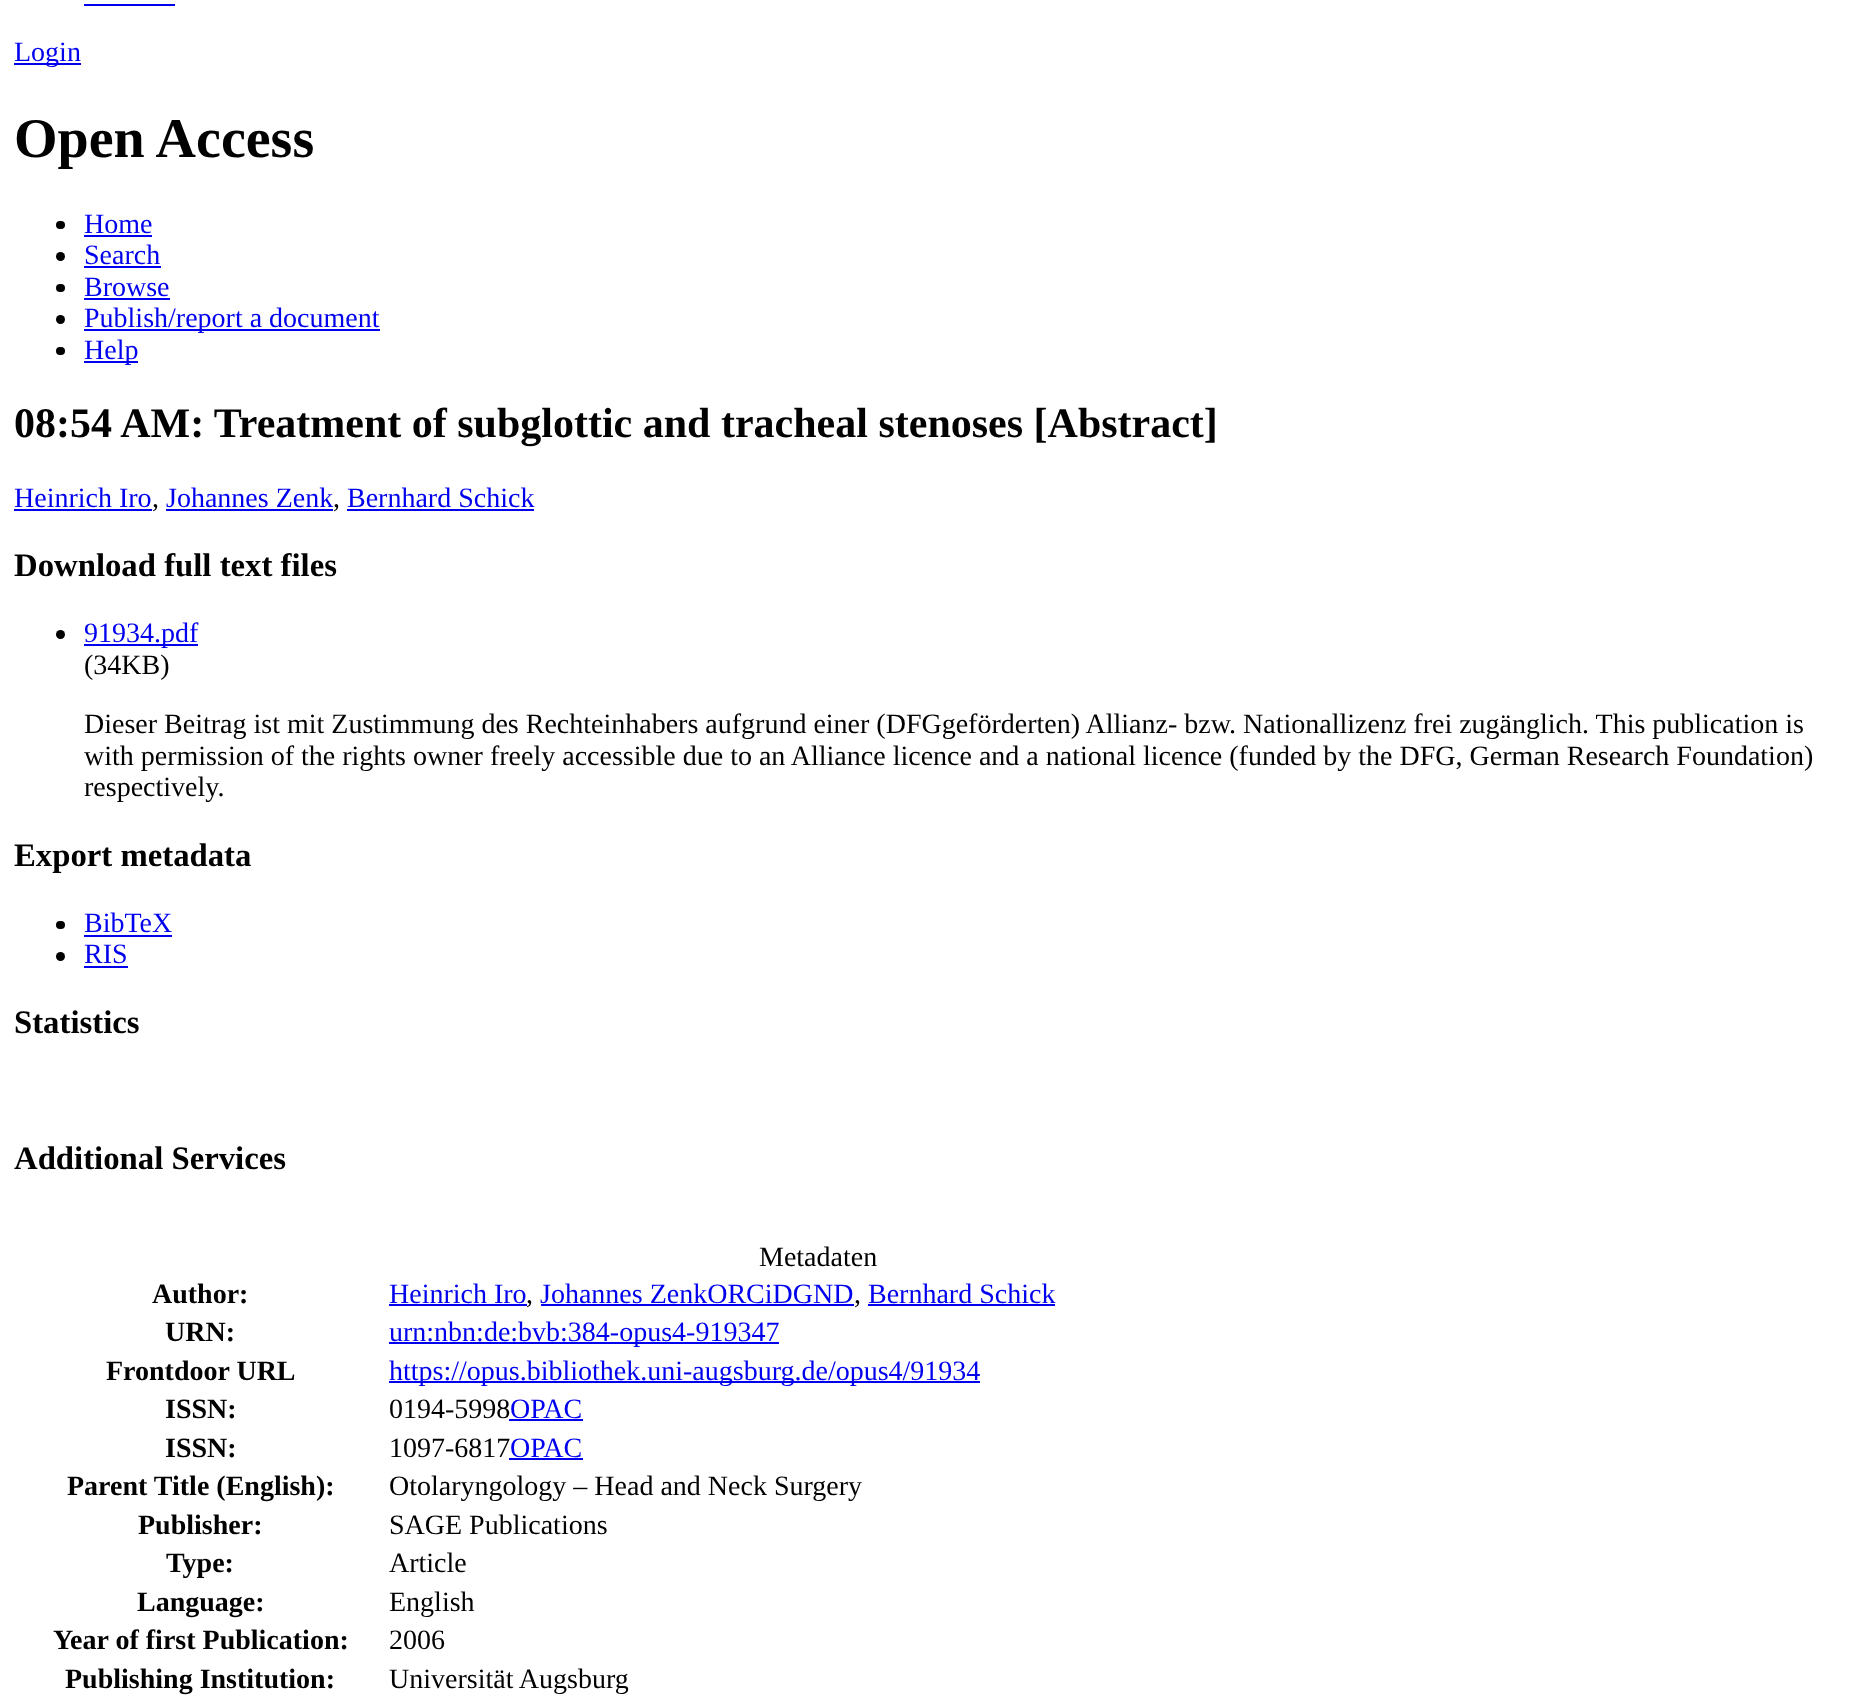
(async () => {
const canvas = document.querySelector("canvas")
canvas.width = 1874
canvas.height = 1705
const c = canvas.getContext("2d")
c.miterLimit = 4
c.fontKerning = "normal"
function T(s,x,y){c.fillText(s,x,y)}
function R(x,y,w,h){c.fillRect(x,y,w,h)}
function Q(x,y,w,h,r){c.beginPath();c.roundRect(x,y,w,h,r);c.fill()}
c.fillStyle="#fff"
R(0,0,1874,1705)
c.fillStyle="#00e"
R(84,4,91,2)
R(14,63,67,2)
c.font="28px Liberation Serif"
T("Login",14,61)
c.font="bold 56px Liberation Serif"
c.fillStyle="#000"
T("Open Access",14,157)
Q(56,221,9,8,4)
c.font="28px Liberation Serif"
c.fillStyle="#00e"
T("Home",84,233)
R(84,235,68,2)
c.fillStyle="#000"
c.beginPath()
c.arc(60.5,256.5,4.5,0,7)
c.fill()
c.fillStyle="#00e"
T("Search",84,264)
R(84,266,77,2)
c.fillStyle="#000"
Q(56,284,9,8,4)
c.fillStyle="#00e"
T("Browse",84,296)
R(84,298,86,2)
c.fillStyle="#000"
c.beginPath()
c.arc(60.5,319.5,4.5,0,7)
c.fill()
c.fillStyle="#00e"
R(84,329,296,2)
T("Publish/report a document",84,327)
c.fillStyle="#000"
Q(56,347,9,8,4)
c.fillStyle="#00e"
R(84,361,54,2)
T("Help",84,359)
c.font="bold 42px Liberation Serif"
c.fillStyle="#000"
T("08:54 AM: Treatment of subglottic and tracheal stenoses [Abstract]",14,437)
c.font="28px Liberation Serif"
c.fillStyle="#00e"
T("Heinrich Iro",14,507)
R(14,509,138,2)
c.fillStyle="#000"
T(",",152,507)
c.fillStyle="#00e"
T("Johannes Zenk",166,507)
R(166,509,167,2)
c.fillStyle="#000"
T(",",333,507)
c.fillStyle="#00e"
T("Bernhard Schick",347,507)
R(347,509,187,2)
c.font="bold 32.75px Liberation Serif"
c.fillStyle="#000"
T("Download full text files",14,576)
c.beginPath()
c.arc(60.5,634.5,4.5,0,7)
c.fill()
c.fillStyle="#00e"
R(84,644,114,2)
c.font="28px Liberation Serif"
T("91934.pdf",84,642)
c.fillStyle="#000"
T("(34KB)",84,674)
T("Dieser Beitrag ist mit Zustimmung des Rechteinhabers aufgrund einer (DFGgeförderten) Allianz- bzw. Nationallizenz frei zugänglich. This publication is",84,733)
T("with permission of the rights owner freely accessible due to an Alliance licence and a national licence (funded by the DFG, German Research Foundation)",84,765)
T("respectively.",84,796)
c.font="bold 32.75px Liberation Serif"
T("Export metadata",14,866)
Q(56,921,9,8,4)
c.font="28px Liberation Serif"
c.fillStyle="#00e"
T("BibTeX",84,932)
R(84,935,88,2)
c.fillStyle="#000"
c.beginPath()
c.arc(60.5,956.5,4.5,0,7)
c.fill()
c.fillStyle="#00e"
T("RIS",84,963)
R(84,966,44,2)
c.font="bold 32.75px Liberation Serif"
c.fillStyle="#000"
T("Statistics",14,1033)
T("Additional Services",14,1169)
c.font="28px Liberation Serif"
T("Metadaten",759,1266)
c.font="bold 28px Liberation Serif"
T("Author:",152,1303)
c.font="28px Liberation Serif"
c.fillStyle="#00e"
T("Heinrich Iro",389,1303)
R(389,1304,138,2)
c.fillStyle="#000"
T(",",526,1303)
c.fillStyle="#00e"
T("Johannes ZenkORCiDGND",540,1303)
R(541,1304,313,2)
c.fillStyle="#000"
T(",",854,1303)
c.fillStyle="#00e"
T("Bernhard Schick",868,1303)
R(868,1304,187,2)
c.font="bold 28px Liberation Serif"
c.fillStyle="#000"
T("URN:",165,1341)
c.fillStyle="#00e"
R(389,1342,390,2)
c.font="28px Liberation Serif"
T("urn:nbn:de:bvb:384-opus4-919347",389,1341)
c.font="bold 28px Liberation Serif"
c.fillStyle="#000"
T("Frontdoor URL",106,1380)
c.fillStyle="#00e"
R(389,1381,591,2)
c.font="28px Liberation Serif"
T("https://opus.bibliothek.uni-augsburg.de/opus4/91934",389,1380)
c.font="bold 28px Liberation Serif"
c.fillStyle="#000"
T("ISSN:",165,1418)
c.font="28px Liberation Serif"
T("0194-5998",389,1418)
c.fillStyle="#00e"
T("OPAC",510,1418)
R(509,1419,74,2)
c.font="bold 28px Liberation Serif"
c.fillStyle="#000"
T("ISSN:",165,1457)
c.font="28px Liberation Serif"
T("1097-6817",389,1457)
c.fillStyle="#00e"
T("OPAC",510,1457)
R(509,1458,74,2)
c.font="bold 28px Liberation Serif"
c.fillStyle="#000"
T("Parent Title (English):",67,1495)
c.font="28px Liberation Serif"
T("Otolaryngology – Head and Neck Surgery",389,1495)
c.font="bold 28px Liberation Serif"
T("Publisher:",138,1534)
c.font="28px Liberation Serif"
T("SAGE Publications",389,1534)
c.font="bold 28px Liberation Serif"
T("Type:",166,1572)
c.font="28px Liberation Serif"
T("Article",389,1572)
c.font="bold 28px Liberation Serif"
T("Language:",137,1611)
c.font="28px Liberation Serif"
T("English",389,1611)
c.font="bold 28px Liberation Serif"
T("Year of first Publication:",53,1649)
c.font="28px Liberation Serif"
T("2006",389,1649)
c.font="bold 28px Liberation Serif"
T("Publishing Institution:",65,1688)
c.font="28px Liberation Serif"
T("Universität Augsburg",389,1688)
})()
